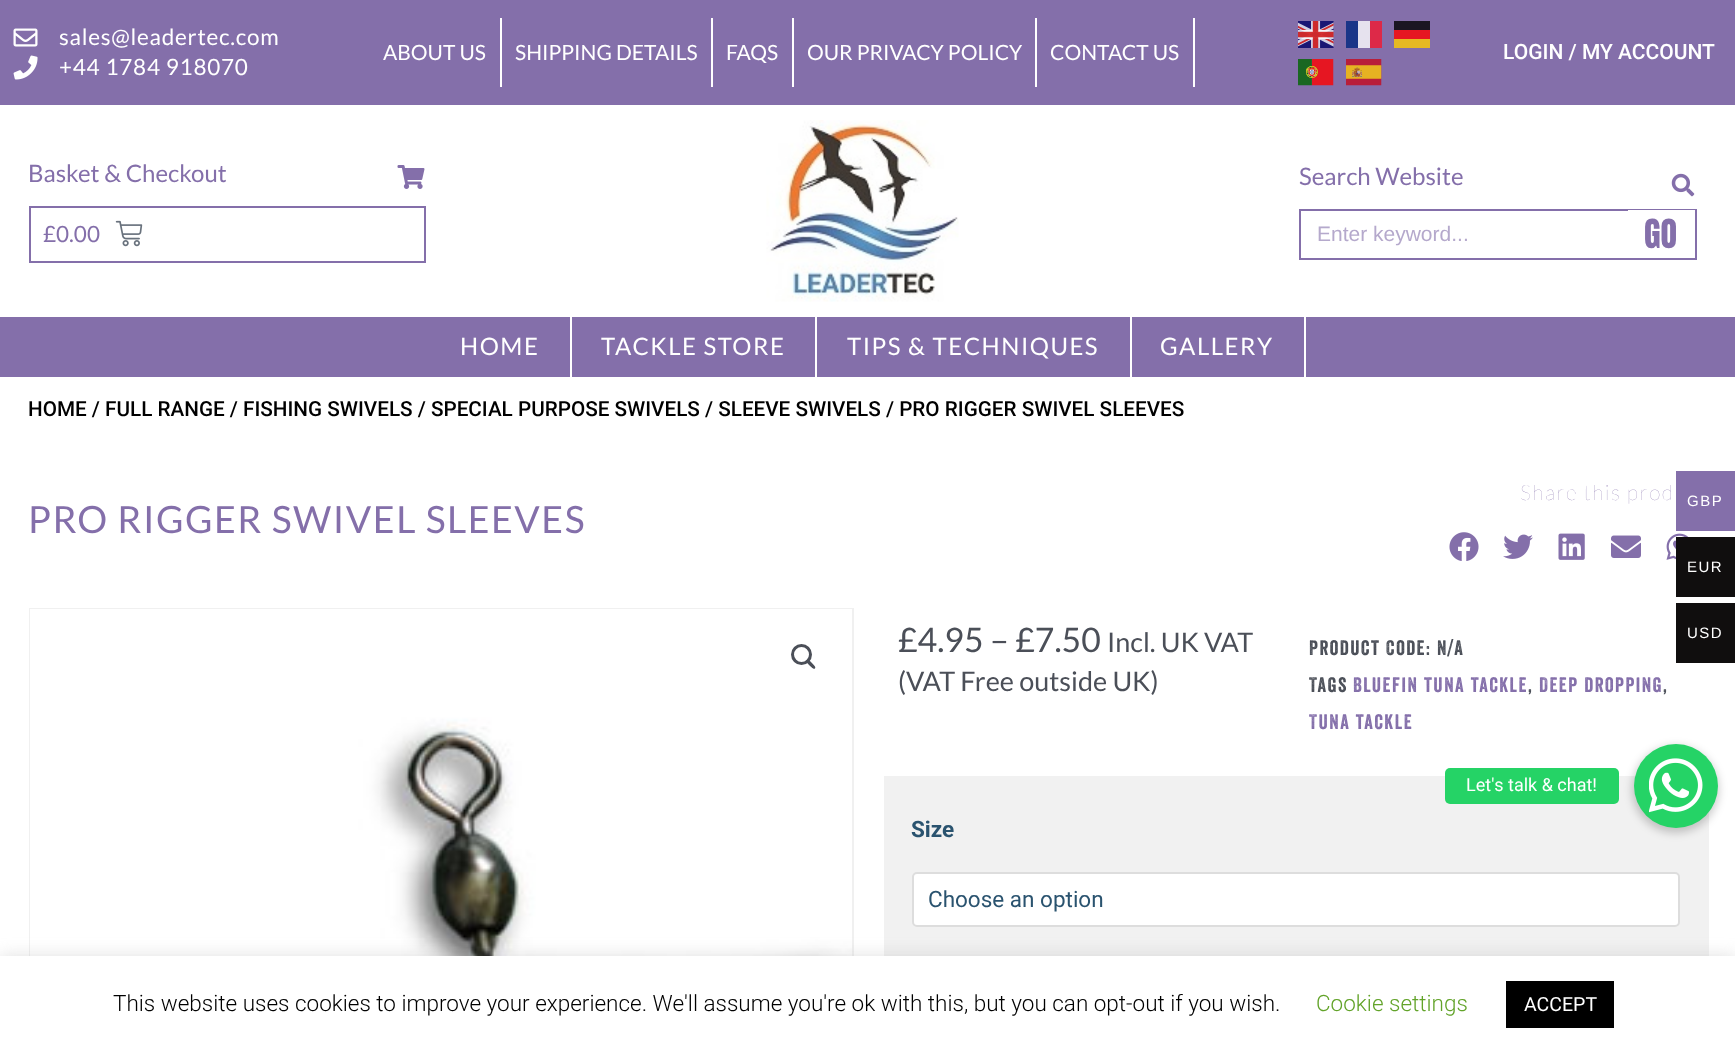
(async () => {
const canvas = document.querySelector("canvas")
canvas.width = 1735
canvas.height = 1053
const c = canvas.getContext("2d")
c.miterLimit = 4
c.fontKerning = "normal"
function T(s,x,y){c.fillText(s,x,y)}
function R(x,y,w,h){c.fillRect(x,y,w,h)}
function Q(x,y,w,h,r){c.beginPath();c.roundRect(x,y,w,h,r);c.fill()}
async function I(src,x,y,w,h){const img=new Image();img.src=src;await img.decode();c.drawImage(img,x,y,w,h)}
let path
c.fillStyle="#fff"
R(0,0,1735,1053)
c.fillStyle="#846faa"
R(0,0,1735,105)
await I("1.png",13,28,25,19)
c.letterSpacing="0.75px"
c.font="22.5px Lato"
c.fillStyle="#fff"
T("sales@leadertec.com",59,45)
await I("2.png",13,55,25,25)
T("+44 1784 918070",59,75)
R(500,18,2,69)
c.letterSpacing="0px"
c.font="21px Lato"
T("ABOUT US",383,60)
R(711,18,2,69)
T("SHIPPING DETAILS",515,60)
R(792,18,2,69)
T("FAQS",726,60)
R(1035,18,2,69)
T("OUR PRIVACY POLICY",807,60)
R(1193,18,2,69)
T("CONTACT US",1050,60)
await I("3.png",1298,21,36,27)
c.fillStyle="#1a3588"
R(1346,21,12,27)
c.fillStyle="#e6e2ee"
R(1358,21,12,27)
c.fillStyle="#dd2948"
R(1370,21,12,27)
c.fillStyle="#1a1622"
R(1394,21,36,9)
c.fillStyle="#e61622"
R(1394,30,36,9)
c.fillStyle="#e6b922"
R(1394,39,36,9)
await I("4.png",1298,59,36,27)
await I("5.png",1346,59,36,27)
c.font="500 21px Roboto"
c.fillStyle="#fff"
T("LOGIN / MY ACCOUNT",1503,59)
c.font="24px Lato"
c.fillStyle="#846faa"
T("Basket & Checkout",28,182)
await I("6.png",397,165,28,24)
c.strokeStyle="#846faa"
c.lineWidth=2
c.strokeRect(30,207,395,55)
c.font="22.5px Lato"
T("£0.00",43,242)
await I("7.png",115,220,28,27)
await I("8.png",766,120,193,182)
c.font="24px Lato"
T("Search Website",1299,185)
await I("9.png",1671,173,24,24)
c.strokeRect(1300,210,396,49)
c.font="21px Liberation Sans"
c.fillStyle="#b5a9cc"
T("Enter keyword...",1317,241)
c.fillStyle="#fff"
R(1628,210,67,1)
c.font="34px Anton"
c.fillStyle="#846faa"
T("GO",1644,248)
R(0,317,1735,60)
c.fillStyle="#fff"
R(570,317,2,60)
c.letterSpacing="1.5px"
c.font="24px Lato"
T("HOME",460,355)
R(815,317,2,60)
T("TACKLE STORE",601,355)
R(1130,317,2,60)
T("TIPS & TECHNIQUES",847,355)
R(1304,317,2,60)
T("GALLERY",1160,355)
c.letterSpacing="0px"
c.font="500 20.7px Roboto"
c.fillStyle="#000"
T("HOME / FULL RANGE / FISHING SWIVELS / SPECIAL PURPOSE SWIVELS / SLEEVE SWIVELS / PRO RIGGER SWIVEL SLEEVES",28,416)
c.letterSpacing="1.5px"
c.font="100 21px Lato"
c.fillStyle="#846faa"
T("Share this prod",1520,500)
await I("10.png",1449,532,30,29)
await I("11.png",1503,534,30,25)
await I("12.png",1558,533,27,27)
await I("13.png",1611,535,30,23)
await I("14.png",1666,533,23,27)
c.font="37.5px Lato"
T("PRO RIGGER SWIVEL SLEEVES",28,533)
c.strokeStyle="#f0f0f0"
c.strokeRect(30,609,823,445)
await I("15.png",30,609,822,347)
c.beginPath()
c.arc(801.5,654.5,9,0,7)
c.strokeStyle="#4b4f58"
c.lineWidth=3
c.stroke()
c.fillStyle="#4b4f58"
path = new Path2D("M806.5 660c1.5-2 4.5 2 5.5 3c.5 1 4.5 3.5 3 5.5c-1.5 1.5-4.5-2.5-5.5-3c-.5-1-4.5-4-3-5.5z")
c.fill(path)
c.letterSpacing="0px"
c.font="33.75px Lato"
T("£4.95 – £7.50",898,652)
c.font="27px Lato"
T("Incl. UK VAT",1107,652)
T("(VAT Free outside UK)",898,691)
c.letterSpacing="1.5px"
c.font="20.25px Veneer"
T("Product Code: N/A",1309,655)
T("Tags",1309,692)
c.fillStyle="#846faa"
T("Bluefin tuna tackle",1353,692)
c.fillStyle="#4b4f58"
T(",",1528,692)
c.fillStyle="#846faa"
T("Deep dropping",1539,692)
c.fillStyle="#4b4f58"
T(",",1663,692)
c.fillStyle="#846faa"
T("Tuna tackle",1309,729)
c.fillStyle="#f1f1f1"
R(884,776,825,180)
c.letterSpacing="0px"
c.font="bold 22.5px Roboto"
c.fillStyle="#2a536f"
T("Size",911,837)
c.fillStyle="#fff"
c.beginPath()
c.roundRect(913,873,766,53,4)
c.fill()
c.strokeStyle="#ddd"
c.lineWidth=2
c.stroke()
c.font="22.5px Roboto"
c.fillStyle="#2a536f"
T("Choose an option",928,907)
c.fillStyle="#846faa"
R(1676,471,59,60)
c.letterSpacing="1.5px"
c.font="15px Liberation Sans"
c.fillStyle="#fff"
T("GBP",1687,506)
c.fillStyle="#100e0e"
R(1676,537,59,60)
c.fillStyle="#fff"
T("EUR",1687,572)
c.fillStyle="#100e0e"
R(1676,603,59,60)
c.fillStyle="#fff"
T("USD",1687,638)
c.fillStyle="#00000033"
c.filter="blur(4.5px)"
c.beginPath()
c.roundRect(1632,746,87,87,43.5)
c.fill()
c.filter="none"
c.fillStyle="#25d366"
c.beginPath()
c.arc(1676,786,42,0,7)
c.fill()
Q(1445,768,174,36,5)
c.letterSpacing="0px"
c.font="18px Roboto"
c.fillStyle="#fff"
T("Let's talk & chat!",1466,791)
await I("16.png",1649,758,54,55)
c.fillStyle="#acabab4d"
c.filter="blur(7.5px)"
c.beginPath()
c.rect(0,954,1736,98)
c.fill()
c.filter="none"
c.fillStyle="#fff"
R(0,956,1735,97)
c.font="300 22.5px Roboto"
c.fillStyle="#000"
T("This website uses cookies to improve your experience. We'll assume you're ok with this, but you can opt-out if you wish.",113,1011)
c.fillStyle="#62a329"
T("Cookie settings",1316,1011)
c.fillStyle="#000"
R(1506,981,108,47)
c.font="19.5px Roboto"
c.fillStyle="#fff"
T("ACCEPT",1524,1011)
})()
